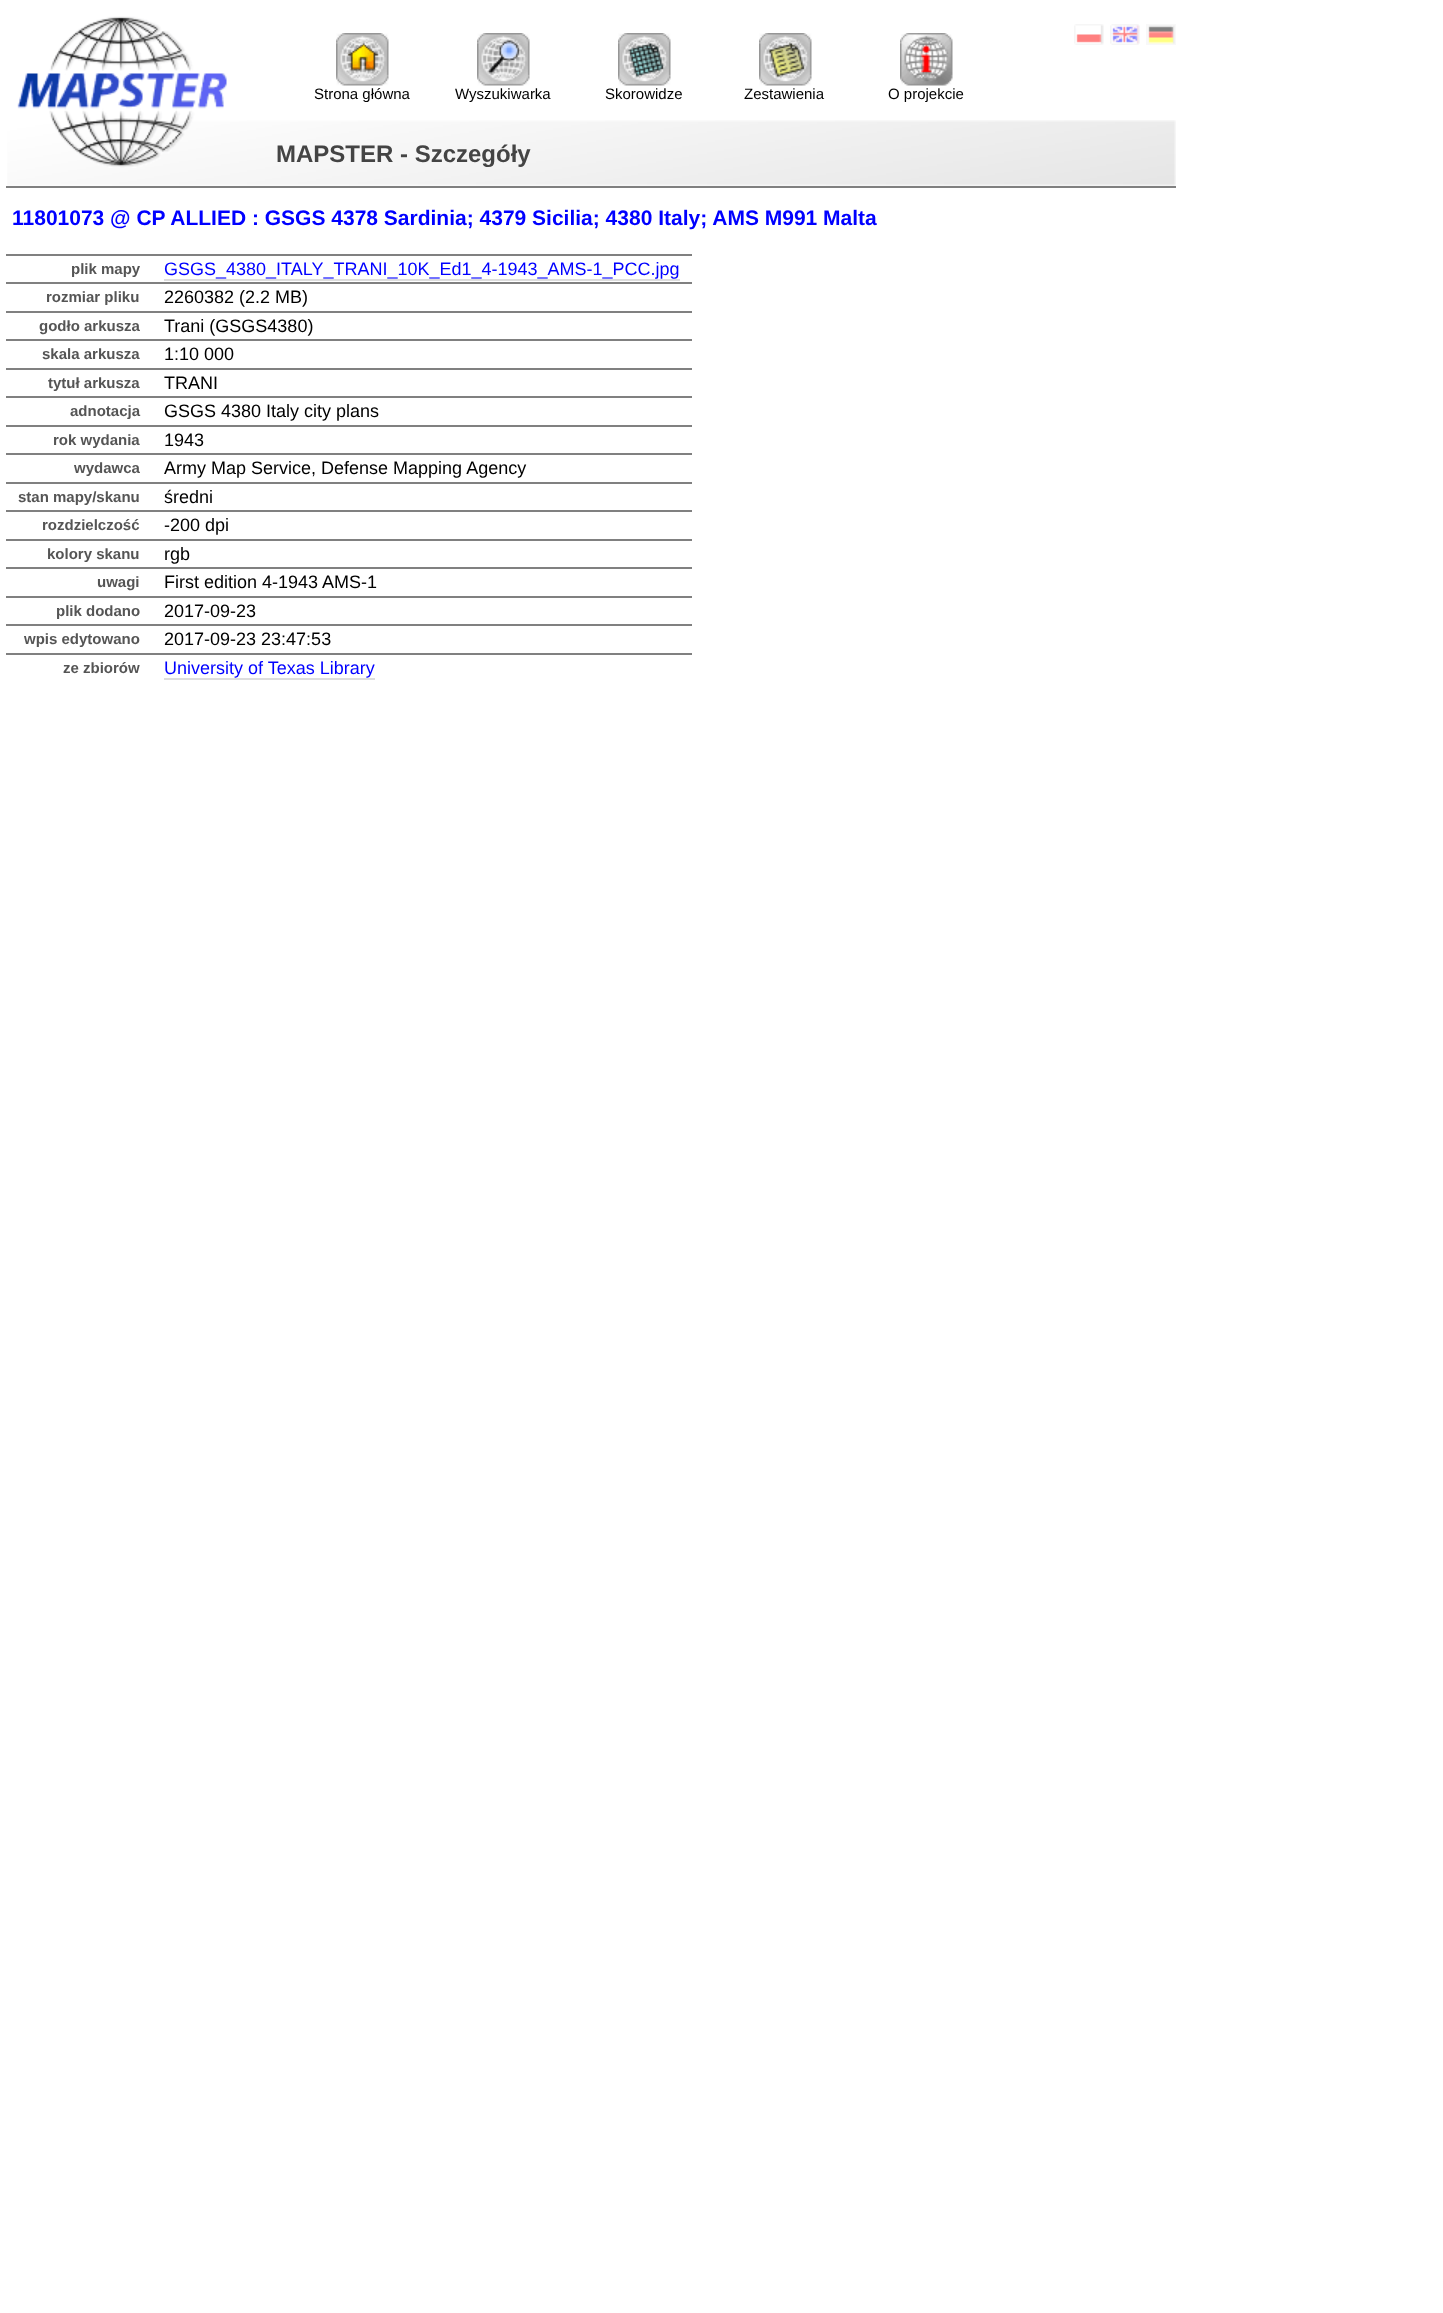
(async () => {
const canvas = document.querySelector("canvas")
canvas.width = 1443
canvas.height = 2313
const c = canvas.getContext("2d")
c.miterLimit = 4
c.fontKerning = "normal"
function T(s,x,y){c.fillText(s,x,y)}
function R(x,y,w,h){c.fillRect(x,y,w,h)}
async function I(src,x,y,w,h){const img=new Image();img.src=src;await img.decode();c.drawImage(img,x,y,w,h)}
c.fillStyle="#fff"
R(0,0,1443,2313)
await I("1.png",7,120,1169,66)
c.fillStyle="#808080"
R(6,186,1170,2)
await I("2.png",17,16,210,152)
await I("3.png",1074,24,30,21)
await I("4.png",1110,24,30,21)
await I("5.png",1146,24,30,21)
await I("6.png",336,33,53,53)
c.font="15px Liberation Sans"
c.fillStyle="#000"
T("Strona główna",314,99)
await I("7.png",477,33,53,53)
T("Wyszukiwarka",455,99)
await I("8.png",618,33,53,53)
T("Skorowidze",605,99)
await I("9.png",759,33,53,53)
T("Zestawienia",744,99)
await I("10.png",900,33,53,53)
T("O projekcie",888,99)
c.font="bold 24px Liberation Sans"
c.fillStyle="#444"
T("MAPSTER - Szczegóły",276,162)
c.font="bold 21px Liberation Sans"
c.fillStyle="#00f"
T("11801073 @ CP ALLIED : GSGS 4378 Sardinia; 4379 Sicilia; 4380 Italy; AMS M991 Malta",12,225)
c.font="bold 15px Liberation Sans"
c.fillStyle="#555"
T("plik mapy",71,274)
c.fillStyle="#808080"
R(6,254,686,2)
c.font="18px Liberation Sans"
c.fillStyle="#00f"
T("GSGS_4380_ITALY_TRANI_10K_Ed1_4-1943_AMS-1_PCC.jpg",164,275)
c.fillStyle="#ddd"
R(164,279,516,2)
c.font="bold 15px Liberation Sans"
c.fillStyle="#555"
T("rozmiar pliku",46,302)
c.fillStyle="#808080"
R(6,282,686,2)
c.font="18px Liberation Sans"
c.fillStyle="#000"
T("2260382 (2.2 MB)",164,303)
c.font="bold 15px Liberation Sans"
c.fillStyle="#555"
T("godło arkusza",39,331)
c.fillStyle="#808080"
R(6,311,686,2)
c.font="18px Liberation Sans"
c.fillStyle="#000"
T("Trani (GSGS4380)",164,332)
c.font="bold 15px Liberation Sans"
c.fillStyle="#555"
T("skala arkusza",42,359)
c.fillStyle="#808080"
R(6,339,686,2)
c.font="18px Liberation Sans"
c.fillStyle="#000"
T("1:10 000",164,360)
c.font="bold 15px Liberation Sans"
c.fillStyle="#555"
T("tytuł arkusza",48,388)
c.fillStyle="#808080"
R(6,368,686,2)
c.font="18px Liberation Sans"
c.fillStyle="#000"
T("TRANI",164,389)
c.font="bold 15px Liberation Sans"
c.fillStyle="#555"
T("adnotacja",70,416)
c.fillStyle="#808080"
R(6,396,686,2)
c.font="18px Liberation Sans"
c.fillStyle="#000"
T("GSGS 4380 Italy city plans",164,417)
c.font="bold 15px Liberation Sans"
c.fillStyle="#555"
T("rok wydania",53,445)
c.fillStyle="#808080"
R(6,425,686,2)
c.font="18px Liberation Sans"
c.fillStyle="#000"
T("1943",164,446)
c.font="bold 15px Liberation Sans"
c.fillStyle="#555"
T("wydawca",74,473)
c.fillStyle="#808080"
R(6,453,686,2)
c.font="18px Liberation Sans"
c.fillStyle="#000"
T("Army Map Service, Defense Mapping Agency",164,474)
c.font="bold 15px Liberation Sans"
c.fillStyle="#555"
T("stan mapy/skanu",18,502)
c.fillStyle="#808080"
R(6,482,686,2)
c.font="18px Liberation Sans"
c.fillStyle="#000"
T("średni",164,503)
c.font="bold 15px Liberation Sans"
c.fillStyle="#555"
T("rozdzielczość",42,530)
c.fillStyle="#808080"
R(6,510,686,2)
c.font="18px Liberation Sans"
c.fillStyle="#000"
T("-200 dpi",164,531)
c.font="bold 15px Liberation Sans"
c.fillStyle="#555"
T("kolory skanu",47,559)
c.fillStyle="#808080"
R(6,539,686,2)
c.font="18px Liberation Sans"
c.fillStyle="#000"
T("rgb",164,560)
c.font="bold 15px Liberation Sans"
c.fillStyle="#555"
T("uwagi",97,587)
c.fillStyle="#808080"
R(6,567,686,2)
c.font="18px Liberation Sans"
c.fillStyle="#000"
T("First edition 4-1943 AMS-1",164,588)
c.font="bold 15px Liberation Sans"
c.fillStyle="#555"
T("plik dodano",56,616)
c.fillStyle="#808080"
R(6,596,686,2)
c.font="18px Liberation Sans"
c.fillStyle="#000"
T("2017-09-23",164,617)
c.font="bold 15px Liberation Sans"
c.fillStyle="#555"
T("wpis edytowano",24,644)
c.fillStyle="#808080"
R(6,624,686,2)
c.font="18px Liberation Sans"
c.fillStyle="#000"
T("2017-09-23 23:47:53",164,645)
c.font="bold 15px Liberation Sans"
c.fillStyle="#555"
T("ze zbiorów",63,673)
c.fillStyle="#808080"
R(6,653,686,2)
c.font="18px Liberation Sans"
c.fillStyle="#00f"
T("University of Texas Library",164,674)
c.fillStyle="#ddd"
R(164,678,211,2)
})()
